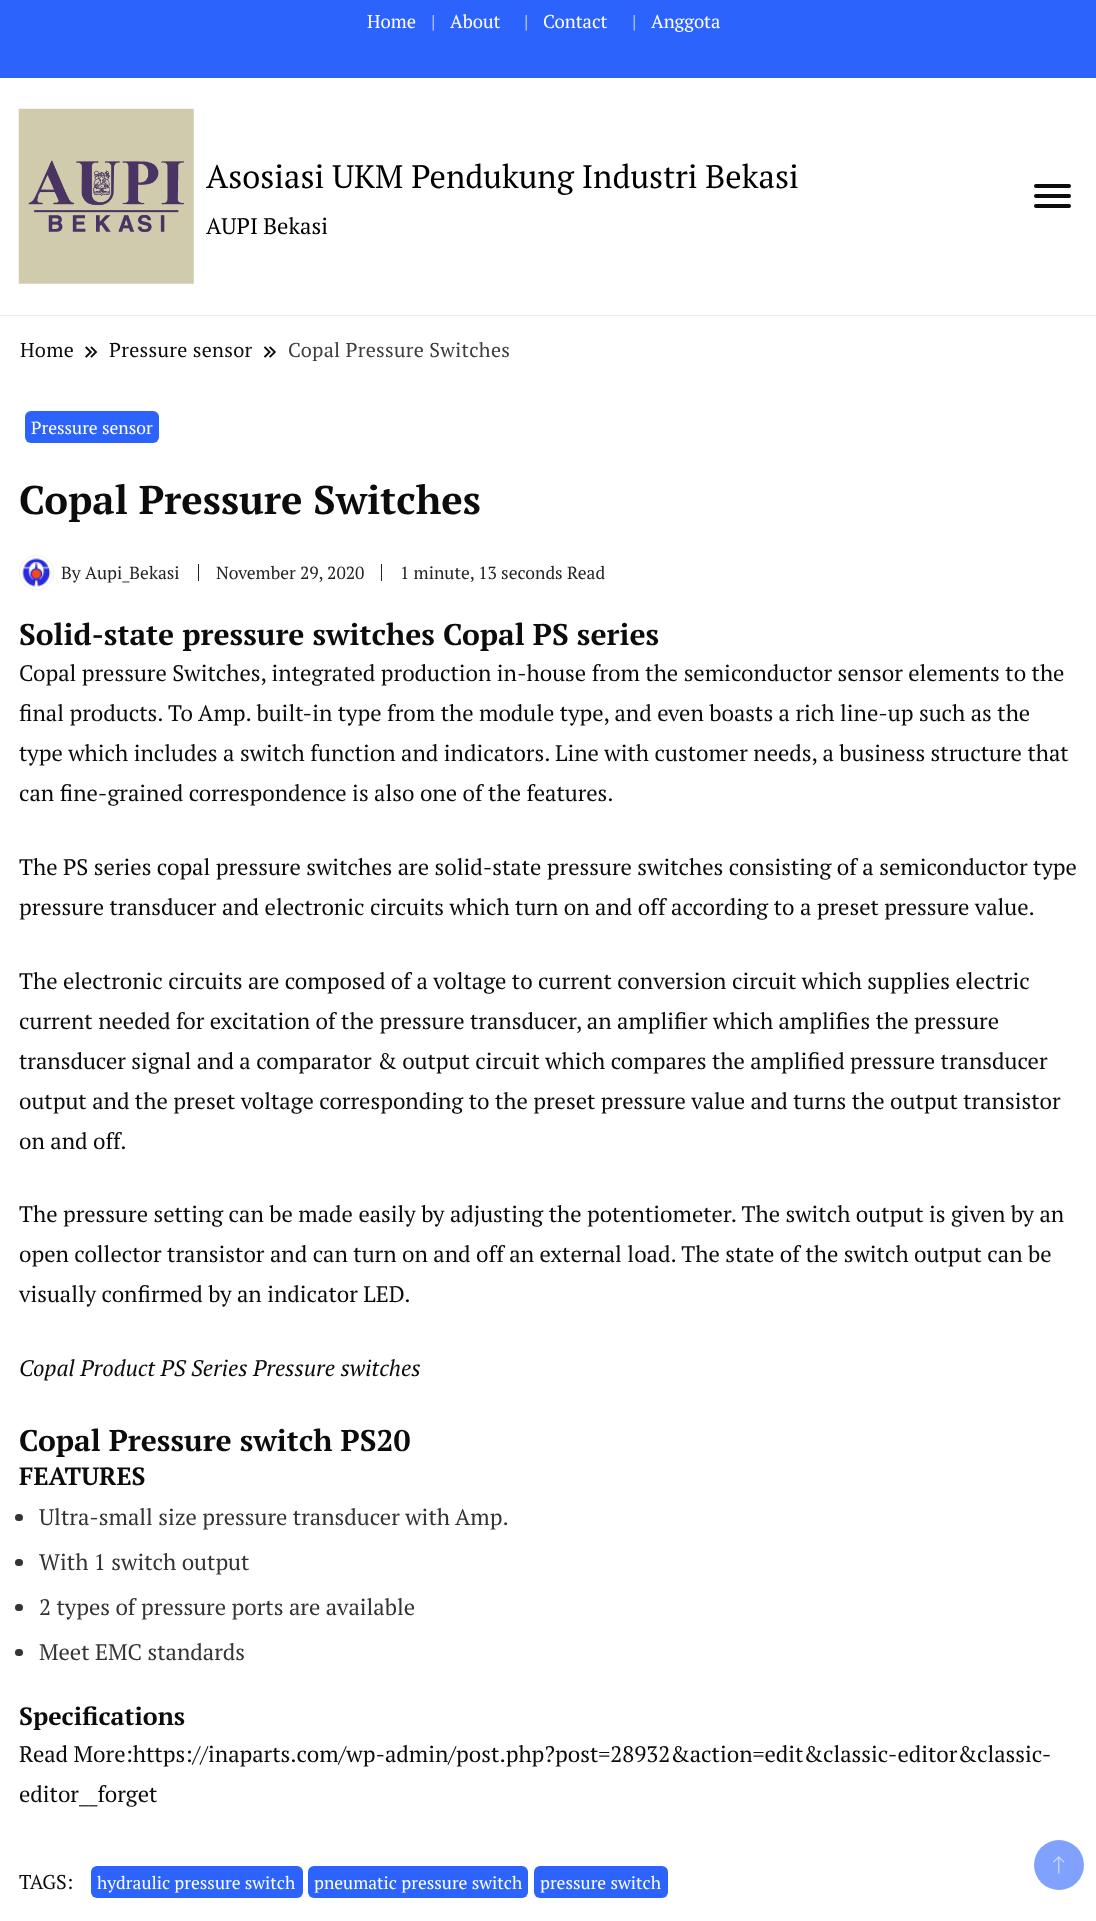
(async () => {
const canvas = document.querySelector("canvas")
canvas.width = 1096
canvas.height = 1921
const c = canvas.getContext("2d")
c.miterLimit = 4
c.fontKerning = "normal"
function T(s,x,y){c.fillText(s,x,y)}
function R(x,y,w,h){c.fillRect(x,y,w,h)}
function Q(x,y,w,h,r){c.beginPath();c.roundRect(x,y,w,h,r);c.fill()}
async function I(src,x,y,w,h){const img=new Image();img.src=src;await img.decode();c.drawImage(img,x,y,w,h)}
c.fillStyle="#fff"
R(0,0,1096,1921)
c.fillStyle="#e8e9e9"
R(0,315,1096,1)
c.fillStyle="#2c63fd"
R(0,0,1096,78)
c.font="18.5px PT Serif"
c.fillStyle="#fff"
T("Home",367,28)
c.fillStyle="#ddd"
T("|",431,28)
c.fillStyle="#fff"
T("About",450,28)
c.fillStyle="#ddd"
T("|",524,28)
c.fillStyle="#fff"
T("Contact",543,28)
c.fillStyle="#ddd"
T("|",632,28)
c.fillStyle="#fff"
T("Anggota",651,28)
await I("1.png",18,108,176,176)
c.font="32.5px PT Serif"
c.fillStyle="#000"
T("Asosiasi UKM Pendukung Industri Bekasi",206,188)
c.font="22.5px PT Serif"
T("AUPI Bekasi",206,234)
c.fillStyle="#0c0c0c"
Q(1034,184,37,4,2)
Q(1034,194,37,4,2)
Q(1034,204,37,4,2)
c.letterSpacing="0.3px"
c.font="20px PT Serif"
T("Home",20,357)
await I("2.png",85,346,13,12)
T("Pressure sensor",109,357)
await I("3.png",264,346,12,12)
c.fillStyle="#3d3d3d"
T("Copal Pressure Switches",288,357)
c.fillStyle="#2c63fd"
Q(25,411,134,32,6)
c.letterSpacing="0px"
c.font="17.5px PT Serif"
c.fillStyle="#fff"
T("Pressure sensor",31,434)
c.font="bold 40px PT Serif"
c.fillStyle="#0c0c0c"
T("Copal Pressure Switches",19,514)
c.beginPath()
c.arc(36.5,572.5,17,0,7)
c.strokeStyle="#f2f2f2"
c.stroke()
await I("4.png",22,558,29,29)
c.font="17.5px PT Serif"
c.fillStyle="#242424"
T("By",61,579)
T("Aupi_Bekasi",85,579)
R(198,564,1,17)
T("November 29, 2020",216,579)
R(381,564,1,17)
T("1 minute, 13 seconds Read",400,579)
c.font="bold 30px PT Serif"
c.fillStyle="#0c0c0c"
T("Solid-state pressure switches Copal PS series",19,645)
c.font="22.5px PT Serif"
T("Copal pressure Switches, integrated production in-house from the semiconductor sensor elements to the",19,681)
T("final products. To Amp. built-in type from the module type, and even boasts a rich line-up such as the",19,721)
T("type which includes a switch function and indicators. Line with customer needs, a business structure that",19,761)
T("can fine-grained correspondence is also one of the features.",19,801)
T("The PS series copal pressure switches are solid-state pressure switches consisting of a semiconductor type",19,875)
T("pressure transducer and electronic circuits which turn on and off according to a preset pressure value.",19,915)
T("The electronic circuits are composed of a voltage to current conversion circuit which supplies electric",19,989)
T("current needed for excitation of the pressure transducer, an amplifier which amplifies the pressure",19,1029)
T("transducer signal and a comparator & output circuit which compares the amplified pressure transducer",19,1069)
T("output and the preset voltage corresponding to the preset pressure value and turns the output transistor",19,1109)
T("on and off.",19,1149)
T("The pressure setting can be made easily by adjusting the potentiometer. The switch output is given by an",19,1222)
T("open collector transistor and can turn on and off an external load. The state of the switch output can be",19,1262)
T("visually confirmed by an indicator LED.",19,1302)
c.font="italic 22.5px PT Serif"
T("Copal Product PS Series Pressure switches",19,1376)
c.font="bold 30px PT Serif"
T("Copal Pressure switch PS20",19,1451)
c.font="bold 25px PT Serif"
T("FEATURES",19,1485)
c.fillStyle="#343434"
Q(15,1514,8,7,3.5)
c.font="22.5px PT Serif"
T("Ultra-small size pressure transducer with Amp.",39,1525)
Q(15,1559,8,7,3.5)
T("With 1 switch output",39,1570)
Q(15,1604,8,7,3.5)
T("2 types of pressure ports are available",39,1615)
Q(15,1649,8,7,3.5)
T("Meet EMC standards",39,1660)
c.font="bold 25px PT Serif"
c.fillStyle="#0c0c0c"
T("Specifications",19,1725)
c.font="22.5px PT Serif"
T("Read More:https://inaparts.com/wp-admin/post.php?post=28932&action=edit&classic-editor&classic-",19,1762)
T("editor__forget",19,1802)
c.font="20px PT Serif"
T("TAGS:",19,1889)
c.fillStyle="#2c63fd"
Q(91,1866,212,32,6)
c.font="17.5px PT Serif"
c.fillStyle="#fff"
T("hydraulic pressure switch",97,1889)
c.fillStyle="#2c63fd"
Q(308,1866,220,32,6)
c.fillStyle="#fff"
T("pneumatic pressure switch",314,1889)
c.fillStyle="#2c63fd"
Q(534,1866,134,32,6)
c.fillStyle="#fff"
T("pressure switch",540,1889)
c.fillStyle="#80a1fe"
c.beginPath()
c.arc(1059,1865,25,0,7)
c.fill()
await I("5.png",1053,1856,12,18)
})()
